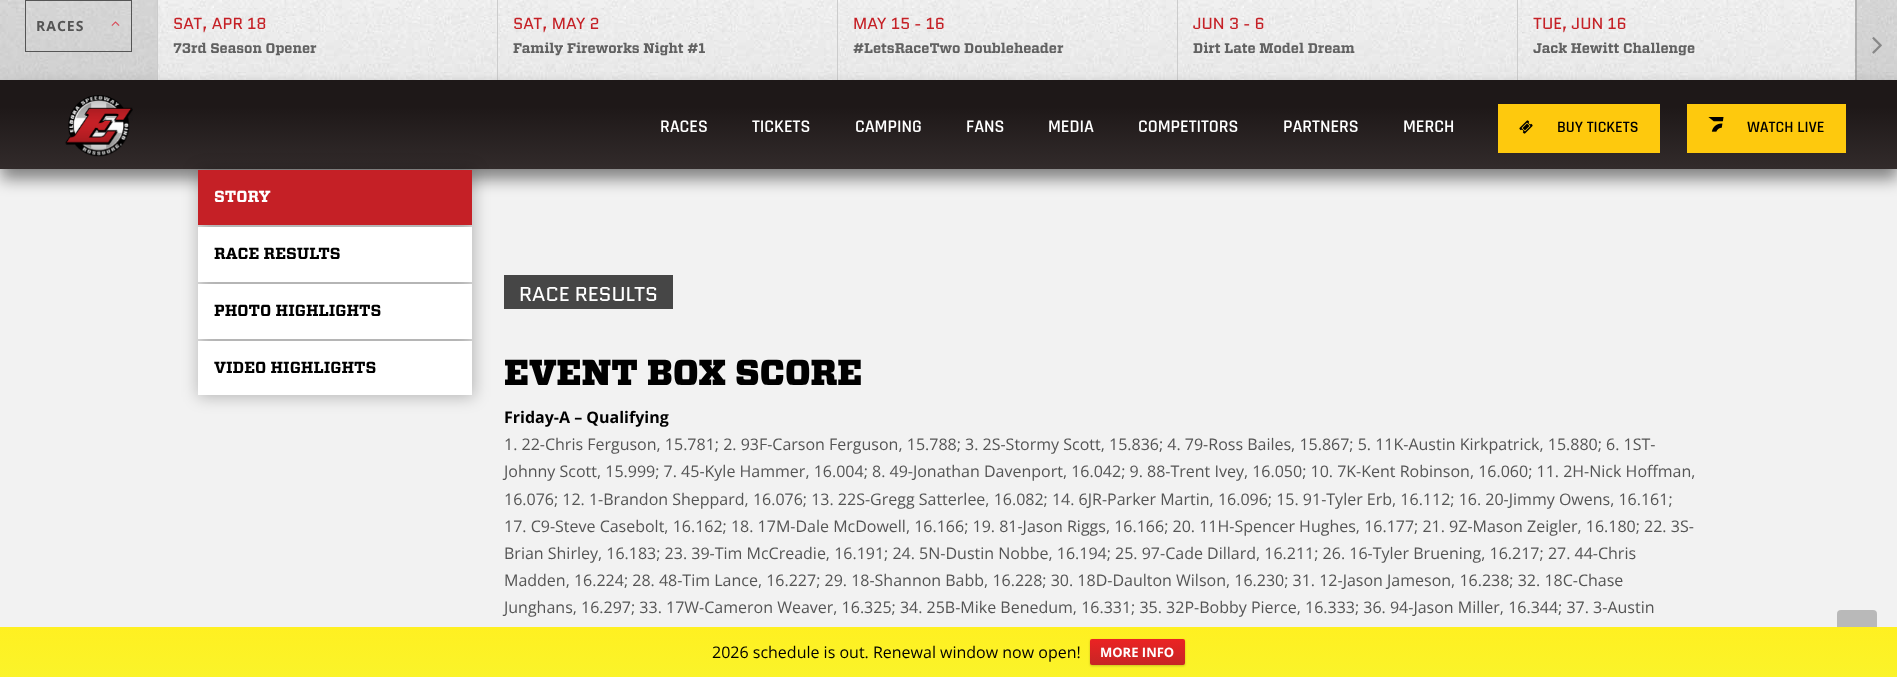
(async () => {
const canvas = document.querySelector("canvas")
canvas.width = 1897
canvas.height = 677
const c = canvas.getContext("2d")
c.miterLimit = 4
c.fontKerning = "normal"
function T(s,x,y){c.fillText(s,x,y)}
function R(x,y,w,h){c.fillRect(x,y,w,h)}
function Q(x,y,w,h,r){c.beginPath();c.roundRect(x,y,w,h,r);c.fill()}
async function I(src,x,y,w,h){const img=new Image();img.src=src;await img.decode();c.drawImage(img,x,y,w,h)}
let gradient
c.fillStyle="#f2f2f2"
R(0,0,1897,677)
await I("1.png",158,0,1739,80)
await I("2.png",0,0,157,80)
c.fillStyle="#ccc"
R(157,0,1,80)
c.strokeStyle="#555"
c.strokeRect(25.5,.5,106,51)
c.letterSpacing="1px"
c.font="bold 14px Open Sans"
c.fillStyle="#555"
T("RACES",36,31)
await I("3.png",111,21,9,5)
c.fillStyle="#ccc"
R(497,0,1,80)
c.letterSpacing="0px"
c.font="16px Quantico"
c.fillStyle="#c52026"
T("SAT, APR 18",173,29)
c.font="bold 14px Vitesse"
c.fillStyle="#616161"
T("73rd Season Opener",173,53)
c.fillStyle="#ccc"
R(837,0,1,80)
c.font="16px Quantico"
c.fillStyle="#c52026"
T("SAT, MAY 2",513,29)
c.font="bold 14px Vitesse"
c.fillStyle="#616161"
T("Family Fireworks Night #1",513,53)
c.fillStyle="#ccc"
R(1177,0,1,80)
c.font="16px Quantico"
c.fillStyle="#c52026"
T("MAY 15 - 16",853,29)
c.font="bold 14px Vitesse"
c.fillStyle="#616161"
T("#LetsRaceTwo Doubleheader",853,53)
c.fillStyle="#ccc"
R(1517,0,1,80)
c.font="16px Quantico"
c.fillStyle="#c52026"
T("JUN 3 - 6",1193,29)
c.font="bold 14px Vitesse"
c.fillStyle="#616161"
T("Dirt Late Model Dream",1193,53)
c.font="16px Quantico"
c.fillStyle="#c52026"
T("TUE, JUN 16",1533,29)
c.font="bold 14px Vitesse"
c.fillStyle="#616161"
T("Jack Hewitt Challenge",1533,53)
c.fillStyle="#0000001a"
R(1855,0,42,80)
c.fillStyle="#5f5f5f4d"
R(1855,0,2,80)
await I("4.png",1872,37,10,17)
c.fillStyle="#04050578"
c.filter="blur(8px)"
c.beginPath()
c.rect(1,90,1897,89)
c.fill()
c.filter="none"
gradient = c.createLinearGradient(949,80,949,169)
gradient.addColorStop(0,"#1e1818")
gradient.addColorStop(.3,"#1e1818")
gradient.addColorStop(1,"#322b2b")
c.fillStyle = gradient
R(0,80,1897,89)
await I("5.png",65,95,68,62)
c.font="600 18px Rajdhani"
c.fillStyle="#fff"
T("RACES",660,132)
T("TICKETS",752,132)
T("CAMPING",855,132)
T("FANS",966,132)
T("MEDIA",1048,132)
T("COMPETITORS",1138,132)
T("PARTNERS",1283,132)
T("MERCH",1403,132)
c.fillStyle="#fec90d"
R(1498,104,162,49)
await I("6.png",1519,120,14,14)
c.font="600 16px Rajdhani"
c.fillStyle="#000"
T("BUY TICKETS",1557,132)
c.fillStyle="#fec90d"
R(1687,104,159,49)
await I("7.png",1708,117,16,15)
c.fillStyle="#000"
T("WATCH LIVE",1747,132)
c.fillStyle="#00000040"
c.filter="blur(8px)"
c.beginPath()
c.rect(198,170,276,227)
c.fill()
c.filter="none"
c.fillStyle="#c52026"
R(198,170,274,55)
c.font="bold 16px Vitesse"
c.fillStyle="#fff"
T("STORY",214,202)
R(198,227,274,55)
c.fillStyle="#000"
T("RACE RESULTS",214,259)
c.fillStyle="#fff"
R(198,284,274,55)
c.fillStyle="#000"
T("PHOTO HIGHLIGHTS",214,316)
c.fillStyle="#fff"
R(198,341,274,54)
c.fillStyle="#000"
T("VIDEO HIGHLIGHTS",214,373)
c.fillStyle="#464646"
R(504,275,169,34)
c.font="20px Quantico"
c.fillStyle="#fff"
T("RACE RESULTS",519,301)
c.font="900 36px Vitesse"
c.fillStyle="#000"
T("EVENT BOX SCORE",504,385)
c.font="bold 16px Open Sans"
T("Friday-A – Qualifying",504,423)
c.font="16px Open Sans"
c.fillStyle="#555"
T("1. 22-Chris Ferguson, 15.781; 2. 93F-Carson Ferguson, 15.788; 3. 2S-Stormy Scott, 15.836; 4. 79-Ross Bailes, 15.867; 5. 11K-Austin Kirkpatrick, 15.880; 6. 1ST-",504,450)
T("Johnny Scott, 15.999; 7. 45-Kyle Hammer, 16.004; 8. 49-Jonathan Davenport, 16.042; 9. 88-Trent Ivey, 16.050; 10. 7K-Kent Robinson, 16.060; 11. 2H-Nick Hoffman,",504,477)
T("16.076; 12. 1-Brandon Sheppard, 16.076; 13. 22S-Gregg Satterlee, 16.082; 14. 6JR-Parker Martin, 16.096; 15. 91-Tyler Erb, 16.112; 16. 20-Jimmy Owens, 16.161;",504,505)
T("17. C9-Steve Casebolt, 16.162; 18. 17M-Dale McDowell, 16.166; 19. 81-Jason Riggs, 16.166; 20. 11H-Spencer Hughes, 16.177; 21. 9Z-Mason Zeigler, 16.180; 22. 3S-",504,532)
T("Brian Shirley, 16.183; 23. 39-Tim McCreadie, 16.191; 24. 5N-Dustin Nobbe, 16.194; 25. 97-Cade Dillard, 16.211; 26. 16-Tyler Bruening, 16.217; 27. 44-Chris",504,559)
T("Madden, 16.224; 28. 48-Tim Lance, 16.227; 29. 18-Shannon Babb, 16.228; 30. 18D-Daulton Wilson, 16.230; 31. 12-Jason Jameson, 16.238; 32. 18C-Chase",504,586)
T("Junghans, 16.297; 33. 17W-Cameron Weaver, 16.325; 34. 25B-Mike Benedum, 16.331; 35. 32P-Bobby Pierce, 16.333; 36. 94-Jason Miller, 16.344; 37. 3-Austin",504,613)
c.fillStyle="#b9b9b9"
Q(1837,610,40,40,4)
gradient = c.createLinearGradient(949,627,949,677)
gradient.addColorStop(0,"#fff021")
gradient.addColorStop(1,"#faf32a")
c.fillStyle = gradient
R(0,627,1897,50)
c.fillStyle="#000"
T("2026 schedule is out. Renewal window now open!",712,658)
c.fillStyle="#00000033"
c.filter="blur(1px)"
c.beginPath()
c.roundRect(1090,640,95,26,2)
c.fill()
c.filter="none"
gradient = c.createLinearGradient(1138,639,1138,665)
gradient.addColorStop(0,"#eb2323")
gradient.addColorStop(1,"#c72525")
c.fillStyle = gradient
Q(1090,639,95,26,2)
c.font="bold 13px Open Sans"
c.fillStyle="#fff"
T("MORE INFO",1100,657)
})()
